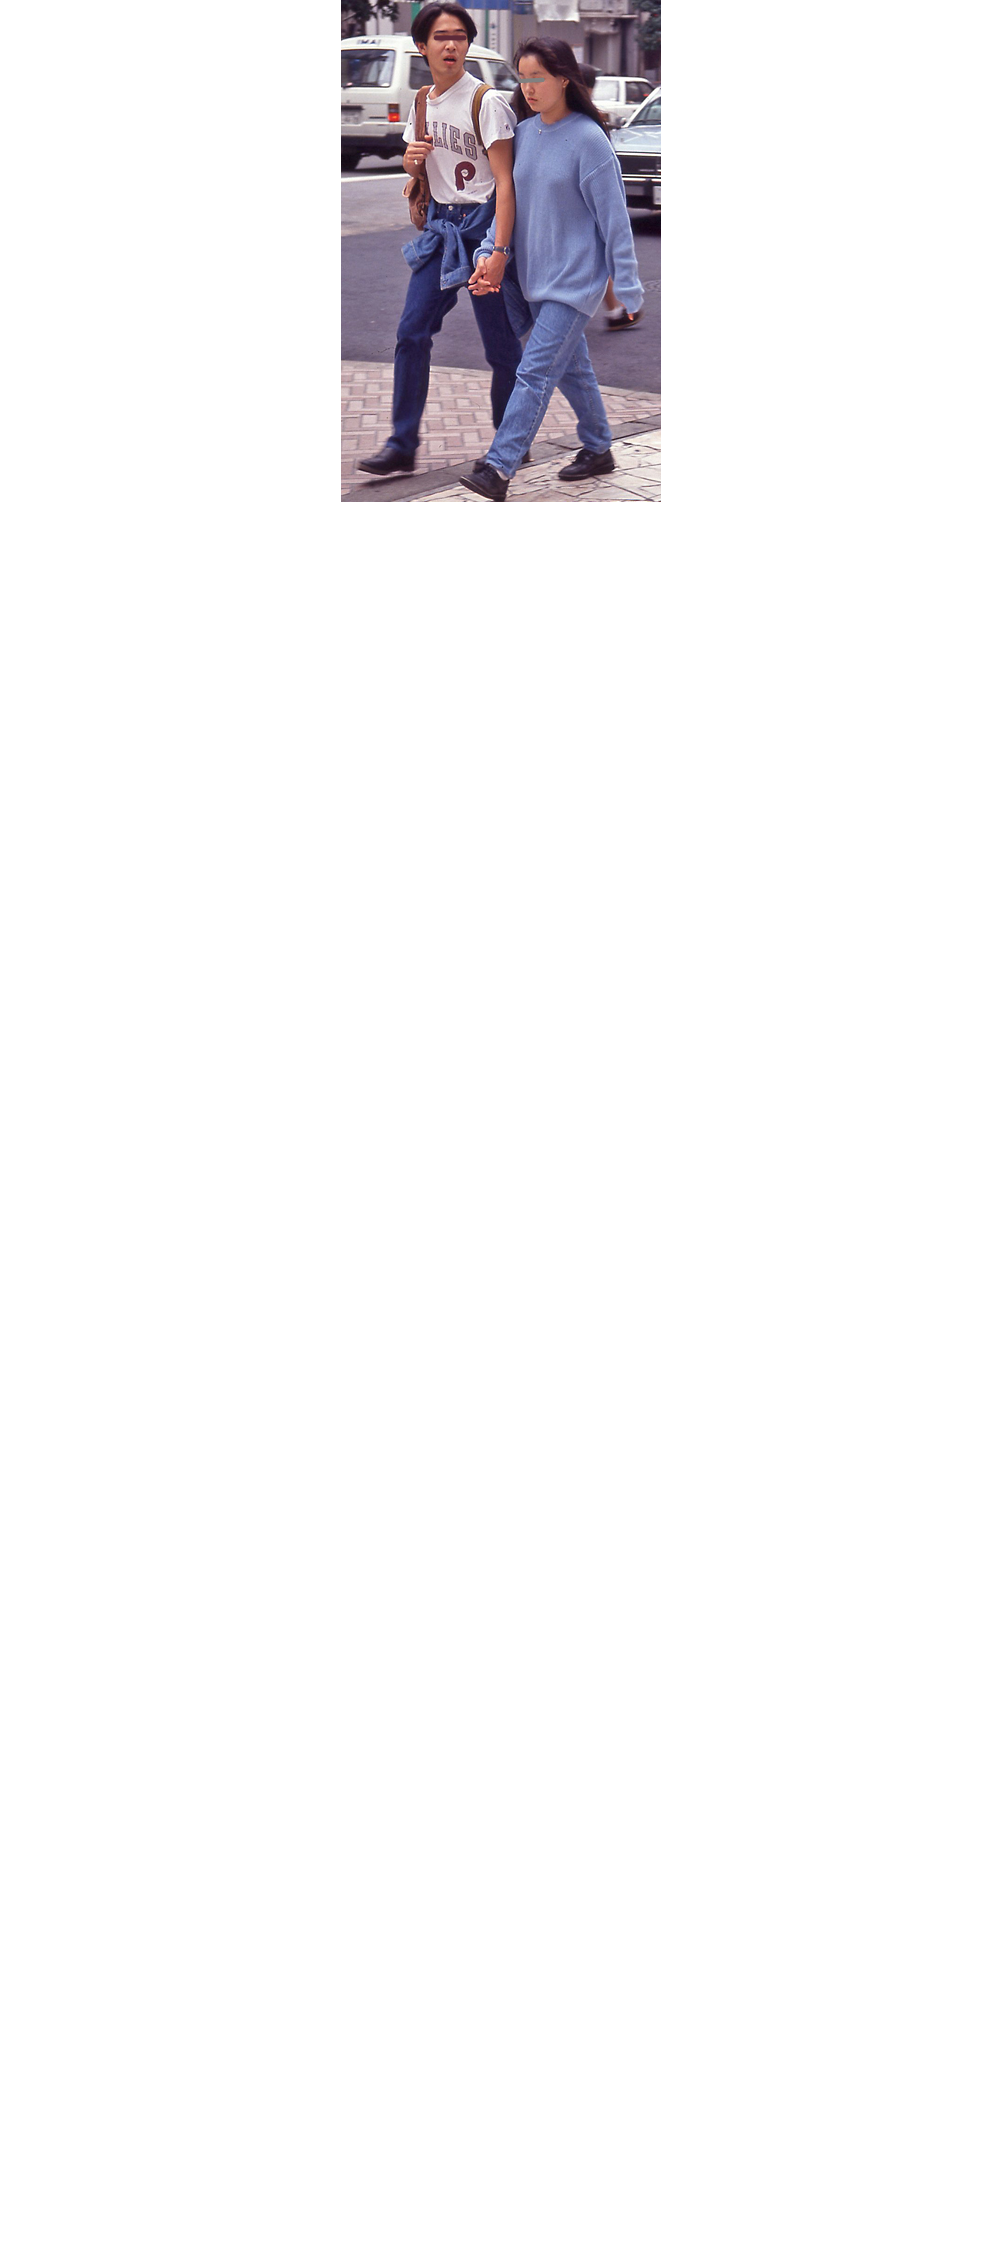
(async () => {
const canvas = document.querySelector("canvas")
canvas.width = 1001
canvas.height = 2255
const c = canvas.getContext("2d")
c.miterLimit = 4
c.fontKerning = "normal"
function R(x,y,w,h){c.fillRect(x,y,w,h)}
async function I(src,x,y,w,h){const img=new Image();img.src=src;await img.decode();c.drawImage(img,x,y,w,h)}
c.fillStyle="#fff"
R(0,0,1001,2255)
await I("1.png",341,0,320,502)
})()
